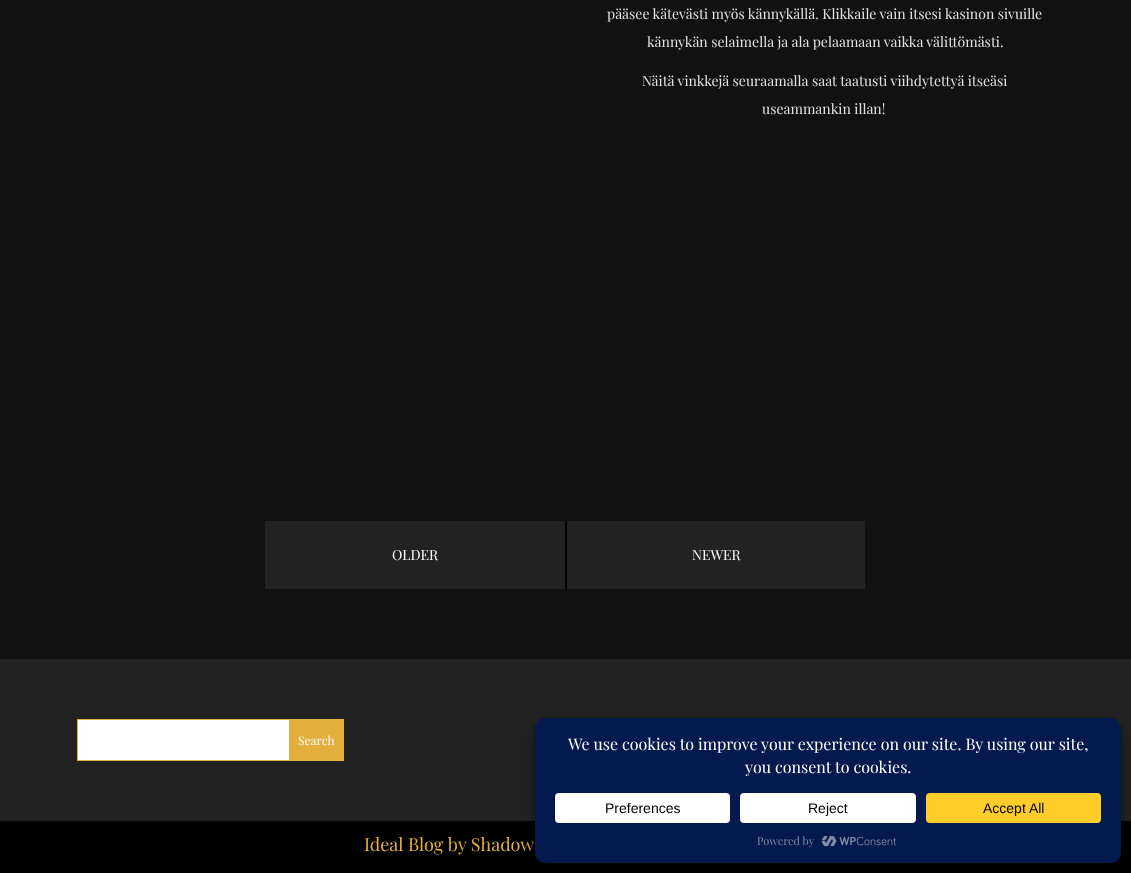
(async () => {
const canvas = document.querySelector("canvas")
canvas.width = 1131
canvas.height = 873
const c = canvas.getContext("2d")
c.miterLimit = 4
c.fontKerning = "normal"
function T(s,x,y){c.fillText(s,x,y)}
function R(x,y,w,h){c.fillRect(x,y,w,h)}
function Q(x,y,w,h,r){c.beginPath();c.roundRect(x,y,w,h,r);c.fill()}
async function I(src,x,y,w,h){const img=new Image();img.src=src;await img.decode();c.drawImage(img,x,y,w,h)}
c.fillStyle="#222"
R(0,0,1131,873)
c.fillStyle="#111"
R(0,0,1131,659)
c.font="14px Playfair Display"
c.fillStyle="#e1e1e1"
T("pääsee kätevästi myös kännykällä. Klikkaile vain itsesi kasinon sivuille",607,19)
T("kännykän selaimella ja ala pelaamaan vaikka välittömästi.",647,47)
T("Näitä vinkkejä seuraamalla saat taatusti viihdytettyä itseäsi",642,86)
T("useammankin illan!",762,114)
c.fillStyle="#222"
R(265,521,600,68)
c.fillStyle="#fff"
T("OLDER",392,560)
c.fillStyle="#000"
R(565,521,2,68)
c.fillStyle="#fff"
T("NEWER",692,560)
c.strokeStyle="#e2ae3d"
c.strokeRect(77.5,719.5,266,41)
R(78,720,211,40)
c.fillStyle="#e2ae3d"
R(289,720,54,40)
c.font="12px Playfair Display"
c.fillStyle="#fff"
T("Search",298,745)
c.fillStyle="#000"
R(0,821,1131,52)
c.font="18px Playfair Display"
c.fillStyle="#e2ae3d"
T("Ideal Blog by Shadow",364,851)
c.fillStyle="#0000003b"
c.filter="blur(3px)"
c.beginPath()
c.roundRect(535,724,586,145,10)
c.fill()
c.filter="none"
c.fillStyle="#00000030"
c.filter="blur(10px)"
c.beginPath()
c.roundRect(535,728,586,145,10)
c.fill()
c.filter="none"
c.fillStyle="#04194e"
Q(535,718,586,145,10)
c.font="16px Playfair Display"
c.fillStyle="#fff"
T("We use cookies to improve your experience on our site. By using our site,",568,750)
T("you consent to cookies.",745,773)
Q(555,793,175,30,4)
c.font="14px Liberation Sans"
c.fillStyle="#000"
T("Preferences",605,813)
c.fillStyle="#fff"
Q(740,793,176,30,4)
c.fillStyle="#000"
T("Reject",808,813)
c.fillStyle="#ffcd2a"
Q(926,793,175,30,4)
c.fillStyle="#000"
T("Accept All",983,813)
c.font="11px Playfair Display"
c.fillStyle="#828ca7"
T("Powered by",757,845)
await I("1.png",821,836,75,11)
})()
